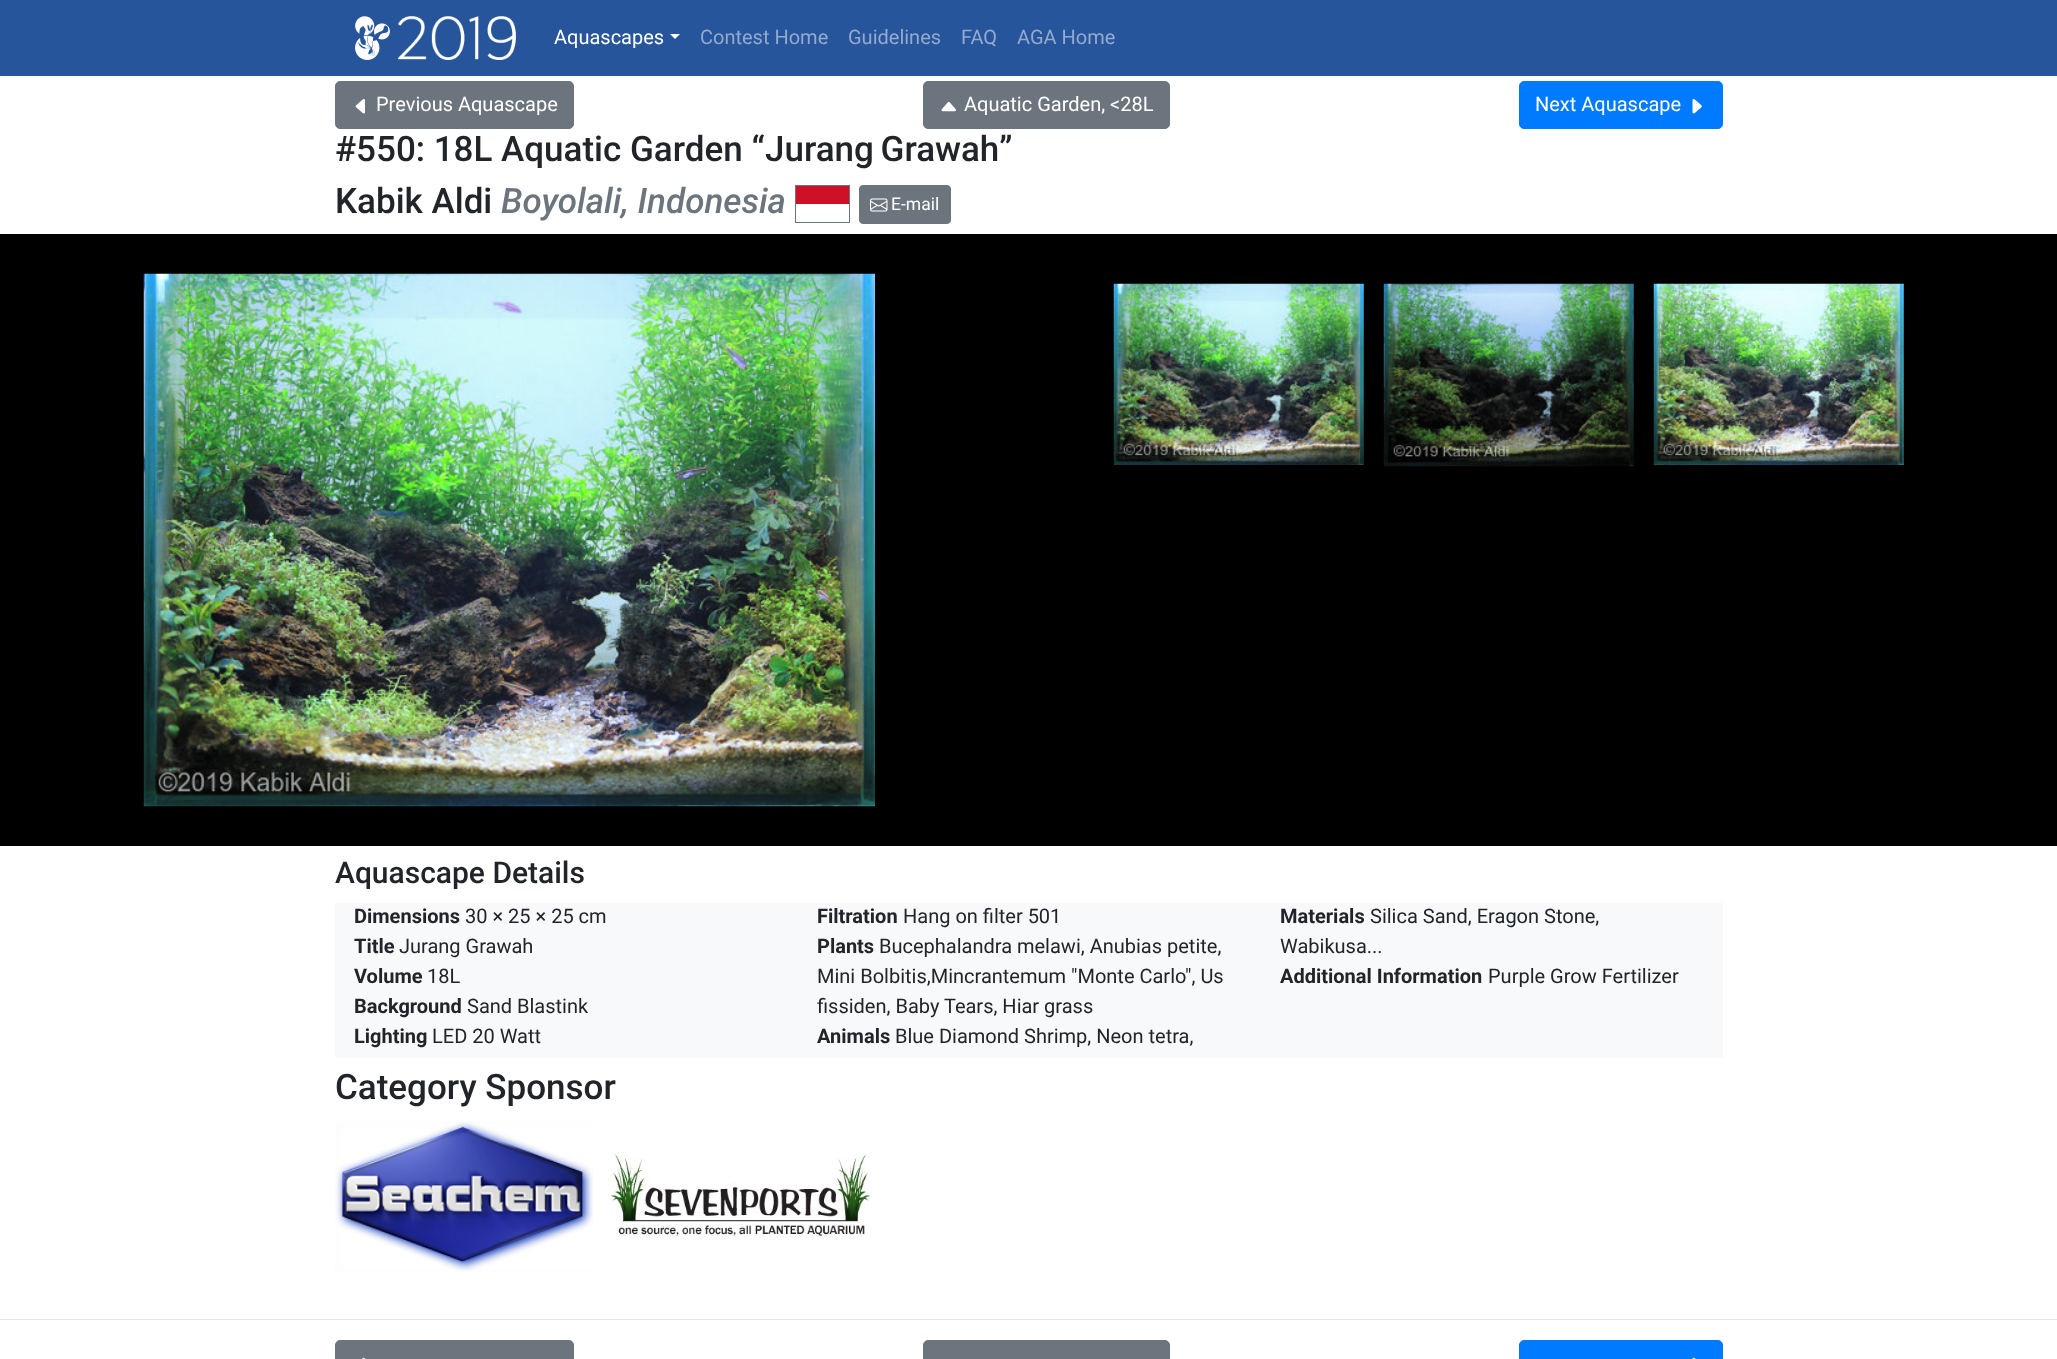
(async () => {
const canvas = document.querySelector("canvas")
canvas.width = 2057
canvas.height = 1359
const c = canvas.getContext("2d")
c.miterLimit = 4
c.fontKerning = "normal"
function T(s,x,y){c.fillText(s,x,y)}
function R(x,y,w,h){c.fillRect(x,y,w,h)}
async function I(src,x,y,w,h){const img=new Image();img.src=src;await img.decode();c.drawImage(img,x,y,w,h)}
let path
c.fillStyle="#fff"
R(0,0,2057,1359)
c.fillStyle="#26559c"
R(0,0,2057,76)
await I("1.png",355,16,35,44)
await I("2.png",398,16,118,44)
c.font="20px Roboto"
c.fillStyle="#fff"
T("Aquascapes",554,44)
path = new Path2D("M670 34h10l-5 5z")
c.fill(path)
c.fillStyle="#93aace"
T("Contest Home",700,44)
T("Guidelines",848,44)
T("FAQ",961,44)
T("AGA Home",1017,44)
c.fillStyle="#6c757d"
c.beginPath()
c.roundRect(335.5,81.5,238,47,4.5)
c.fill()
c.strokeStyle="#6c757d"
c.stroke()
await I("3.png",355,99,10,15)
c.fillStyle="#fff"
T("Previous Aquascape",376,111)
c.fillStyle="#6c757d"
c.beginPath()
c.roundRect(923.5,81.5,246,47,4.5)
c.fill()
c.stroke()
await I("4.png",941,101,15,11)
c.fillStyle="#fff"
T("Aquatic Garden, <28L",964,111)
c.fillStyle="#007bff"
c.beginPath()
c.roundRect(1519.5,81.5,203,47,4.5)
c.fill()
c.strokeStyle="#007bff"
c.stroke()
c.fillStyle="#fff"
T("Next Aquascape",1535,111)
await I("5.png",1692,99,10,15)
c.font="500 35px Roboto"
c.fillStyle="#212529"
T("#550: 18L Aquatic Garden “",335,161)
c.wordSpacing="-2px"
T("Jurang Grawah",765,161)
c.wordSpacing="0px"
T("”",999,161)
T("Kabik Aldi",335,213)
c.font="italic 500 35px Roboto"
c.fillStyle="#6c757d"
T("Boyolali, Indonesia",501,213)
c.strokeStyle="#6c757d"
c.strokeRect(795.5,185.5,54,37)
c.fillStyle="#ce1126"
R(796,186,53,18)
c.fillStyle="#6c757d"
c.beginPath()
c.roundRect(859.5,185.5,91,38,3.5)
c.fill()
c.stroke()
await I("6.png",870,198,18,14)
c.font="17.5px Roboto"
c.fillStyle="#fff"
T("E-mail",891,210)
c.fillStyle="#000"
R(0,234,2057,612)
await I("7.png",143,273,732,534)
await I("8.png",1113,283,251,182)
await I("9.png",1383,283,251,184)
await I("10.png",1653,283,251,182)
c.font="500 30px Roboto"
c.fillStyle="#212529"
T("Aquascape Details",335,883)
c.fillStyle="#f8f9fa"
R(335,903,1388,155)
c.font="bold 20px Roboto"
c.fillStyle="#212529"
T("Dimensions",354,923)
c.font="20px Roboto"
T("30 × 25 × 25 cm",465,923)
c.font="bold 20px Roboto"
T("Filtration",817,923)
c.font="20px Roboto"
T("Hang on filter 501",903,923)
c.font="bold 20px Roboto"
T("Materials",1280,923)
c.font="20px Roboto"
T("Silica Sand, Eragon Stone,",1370,923)
T("Wabikusa...",1280,953)
c.font="bold 20px Roboto"
T("Title",354,953)
c.font="20px Roboto"
T("Jurang Grawah",399,953)
c.font="bold 20px Roboto"
T("Plants",817,953)
c.font="20px Roboto"
T("Bucephalandra melawi, Anubias petite,",879,953)
T("Mini Bolbitis,Mincrantemum \"Monte Carlo\", Us",817,983)
T("fissiden, Baby Tears, Hiar grass",817,1013)
c.font="bold 20px Roboto"
T("Additional Information",1280,983)
c.font="20px Roboto"
T("Purple Grow Fertilizer",1488,983)
c.font="bold 20px Roboto"
T("Volume",354,983)
c.font="20px Roboto"
T("18L",427,983)
c.font="bold 20px Roboto"
T("Background",354,1013)
c.font="20px Roboto"
T("Sand Blastink",467,1013)
c.font="bold 20px Roboto"
T("Lighting",354,1043)
c.font="20px Roboto"
T("LED 20 Watt",432,1043)
c.font="bold 20px Roboto"
T("Animals",817,1043)
c.font="20px Roboto"
T("Blue Diamond Shrimp, Neon tetra,",895,1043)
c.font="500 35px Roboto"
T("Category Sponsor",335,1099)
await I("11.png",335,1121,258,151)
await I("12.png",610,1153,261,85)
c.fillStyle="#e6e6e6"
R(0,1319,2057,1)
c.fillStyle="#6c757d"
c.beginPath()
c.roundRect(335.5,1340.5,238,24,4.5)
c.fill()
c.stroke()
await I("13.png",362,1357,3,2)
c.beginPath()
c.roundRect(923.5,1340.5,246,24,4.5)
c.fill()
c.stroke()
c.fillStyle="#007bff"
c.beginPath()
c.roundRect(1519.5,1340.5,203,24,4.5)
c.fill()
c.strokeStyle="#007bff"
c.stroke()
await I("14.png",1692,1357,4,2)
})()
